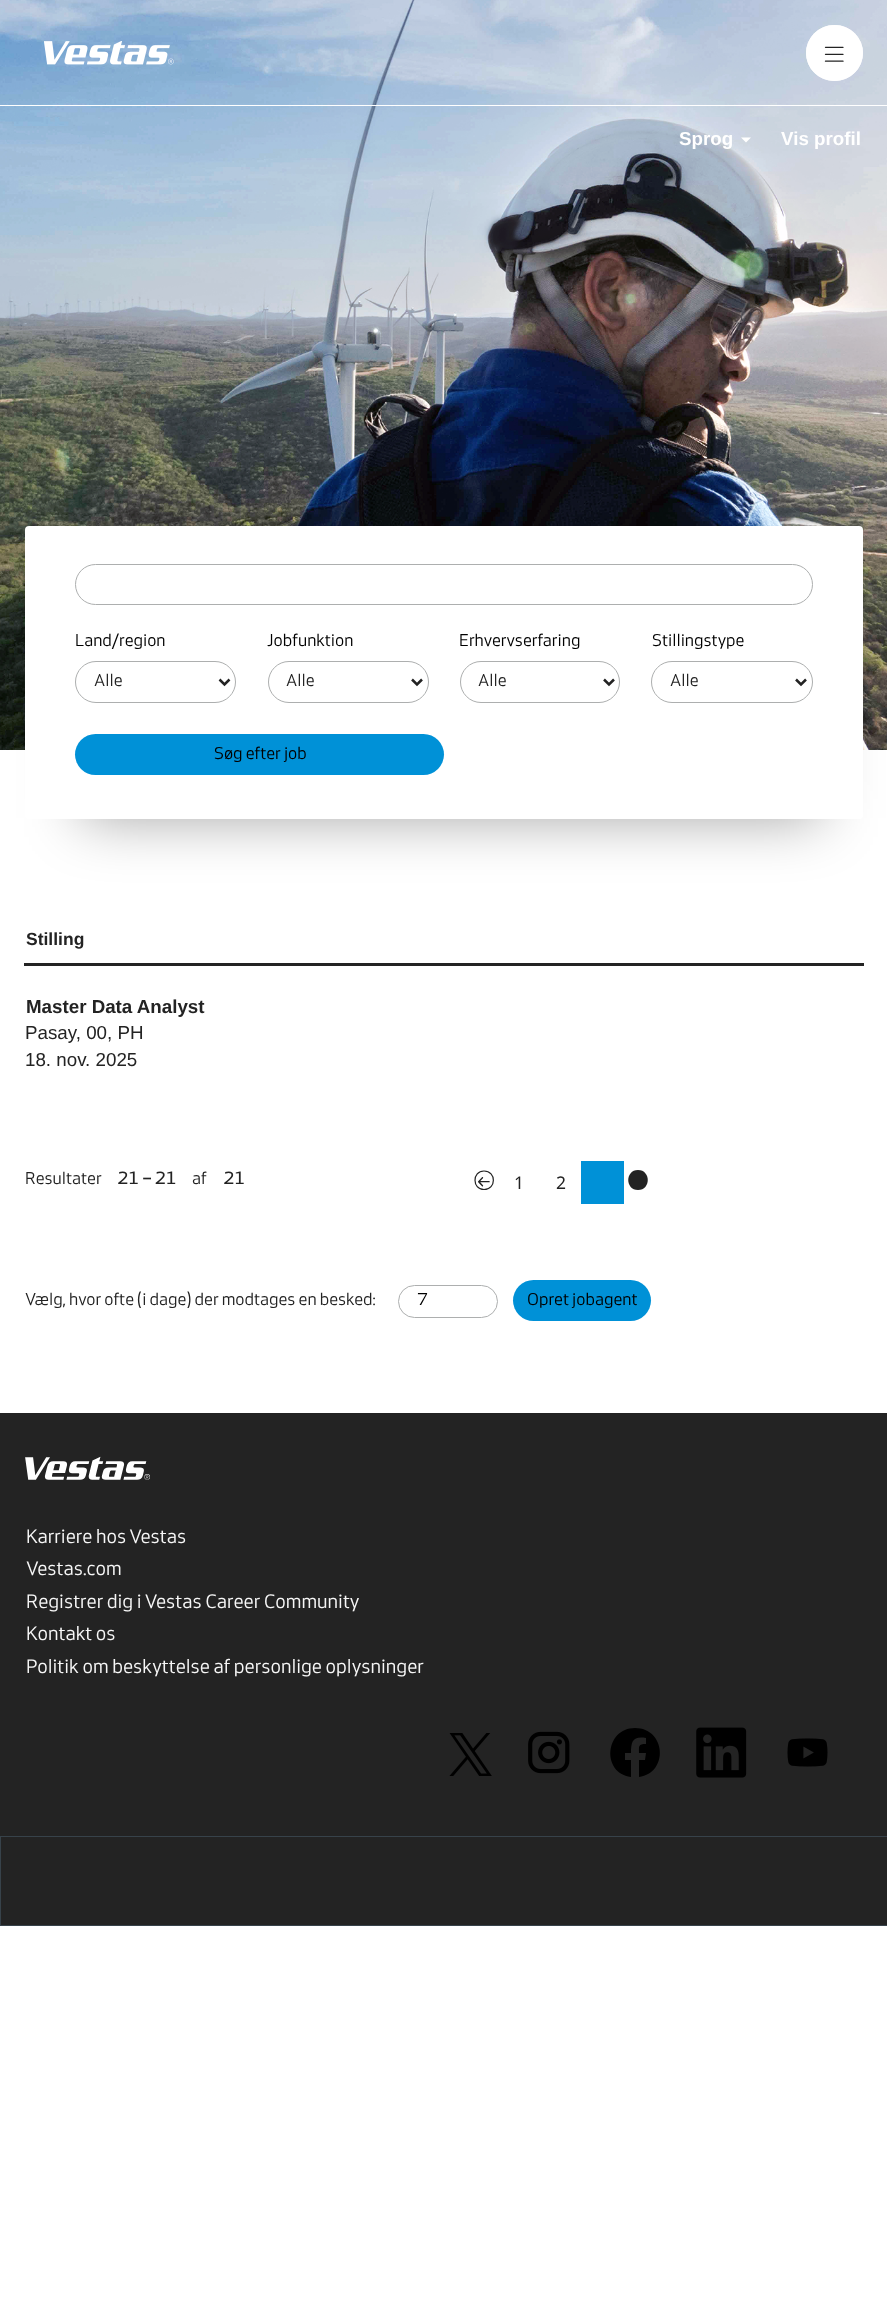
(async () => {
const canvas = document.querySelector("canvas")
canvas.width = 887
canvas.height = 2322
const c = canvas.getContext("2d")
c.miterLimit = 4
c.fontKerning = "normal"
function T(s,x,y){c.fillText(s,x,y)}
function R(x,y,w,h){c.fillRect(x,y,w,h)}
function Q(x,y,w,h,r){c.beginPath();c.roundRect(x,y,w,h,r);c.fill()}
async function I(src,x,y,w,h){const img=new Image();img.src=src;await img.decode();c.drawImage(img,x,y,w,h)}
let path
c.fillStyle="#fff"
R(0,0,887,2322)
await I("3.png",0,0,887,750)
R(0,105,887,1)
await I("1.png",44,41,130,24)
Q(806,25,57,56,28)
await I("2.png",824,46,20,16)
c.beginPath()
c.roundRect(806.5,25.5,56,55,27.5)
c.strokeStyle="#fff"
c.stroke()
c.font="bold 18.75px Liberation Sans"
T("Sprog",679,145)
path = new Path2D("M741 137.5h10l-5 5z")
c.fill(path)
T("Vis profil",781,145)
c.fillStyle="#0000005c"
c.filter="blur(29px)"
c.beginPath()
c.rect(81,623,740,195)
c.fill()
c.filter="none"
c.fillStyle="#fff"
Q(25,526,838,293,4)
c.beginPath()
c.roundRect(75.5,564.5,737,40,20)
c.strokeStyle="#adafaf"
c.stroke()
c.font="17.5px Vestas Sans"
c.fillStyle="#000"
T("Land/region",75,646)
c.beginPath()
c.roundRect(75.5,661.5,160,41,20.5)
c.stroke()
path = new Path2D("M219.5 679.5l5 5l5-5")
c.strokeStyle="#232323"
c.lineWidth=2.5
c.stroke(path)
c.fillStyle="#232323"
T("Alle",94,686)
c.fillStyle="#000"
T("Jobfunktion",267,646)
c.beginPath()
c.roundRect(268.5,661.5,160,41,20.5)
c.strokeStyle="#adafaf"
c.lineWidth=1
c.stroke()
path = new Path2D("M412 679.5l5 5l5-5")
c.strokeStyle="#232323"
c.lineWidth=2.5
c.stroke(path)
c.fillStyle="#232323"
T("Alle",286,686)
c.fillStyle="#000"
T("Erhvervserfaring",459,646)
c.beginPath()
c.roundRect(460.5,661.5,159,41,20.5)
c.strokeStyle="#adafaf"
c.lineWidth=1
c.stroke()
path = new Path2D("M604 679.5l5 5l5-5")
c.strokeStyle="#232323"
c.lineWidth=2.5
c.stroke(path)
c.fillStyle="#232323"
T("Alle",478,686)
c.fillStyle="#000"
T("Stillingstype",652,646)
c.beginPath()
c.roundRect(651.5,661.5,161,41,20.5)
c.strokeStyle="#adafaf"
c.lineWidth=1
c.stroke()
path = new Path2D("M796 679.5l5 5l5-5")
c.strokeStyle="#232323"
c.lineWidth=2.5
c.stroke(path)
c.fillStyle="#232323"
T("Alle",670,686)
c.fillStyle="#0091d7"
Q(75,734,369,41,20.5)
c.fillStyle="#000"
T("Søg efter job",214,759)
c.fillStyle="#232323"
R(24,963,840,3)
c.font="bold 17.5px Liberation Sans"
T("Stilling",26,945)
c.font="bold 18.75px Liberation Sans"
T("Master Data Analyst",26,1013)
c.font="18.75px Liberation Sans"
T("Pasay, 00, PH",25,1039)
T("18. nov. 2025",25,1066)
c.font="17.5px Vestas Sans"
T("Resultater",25,1184)
c.font="bold 17.5px Vestas Sans"
T("21 – 21",117,1184)
c.font="17.5px Vestas Sans"
T("af",192,1184)
c.font="bold 17.5px Vestas Sans"
T("21",223,1184)
path = new Path2D("M484 1189.5c-12 0-12-18.5 0-18.5c12.5 0 12.5 18.5 0 18.5z")
c.lineWidth=1.2
c.stroke(path)
await I("4.png",478,1177,12,10)
c.font="17.5px Noto Sans"
T("1",514,1189)
T("2",556,1189)
c.fillStyle="#0091d7"
R(581,1161,43,43)
c.fillStyle="#232323"
path = new Path2D("M638 1170c13 0 13 20 0 20c-13 0-13-20 0-20z")
c.fill(path)
c.font="17.5px Vestas Sans"
T("Vælg, hvor ofte (i dage) der modtages en besked:",25,1305)
c.beginPath()
c.roundRect(398.5,1285.5,99,32,16)
c.strokeStyle="#adafaf"
c.lineWidth=1
c.stroke()
c.fillStyle="#000"
T("7",417,1305)
c.fillStyle="#0091d7"
Q(513,1280,138,41,20.5)
c.fillStyle="#000"
T("Opret jobagent",527,1305)
c.fillStyle="#232323"
R(0,1413,887,512)
await I("5.png",25,1456,125,24)
c.font="20px Vestas Sans"
c.fillStyle="#f7f7f7"
T("Karriere hos Vestas",26,1543)
T("Vestas.com",26,1575)
T("Registrer dig i Vestas Career Community",26,1608)
T("Kontakt os",26,1640)
T("Politik om beskyttelse af personlige oplysninger",26,1673)
await I("6.png",449,1733,43,43)
await I("7.png",528,1731,42,43)
c.fillStyle="#000"
path = new Path2D("M635 1728c-30 0-34 45-4 49v-17h-6v-7h6c0-12 2-17 15-15v6c-8 0-7 2-7 9h7l-1 7h-6v17c30-4 27-49-4-49z")
c.fill(path)
await I("8.png",696,1727,51,51)
await I("9.png",787,1738,41,29)
c.strokeStyle="#37424a"
c.strokeRect(.5,1836.5,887,89)
})()
